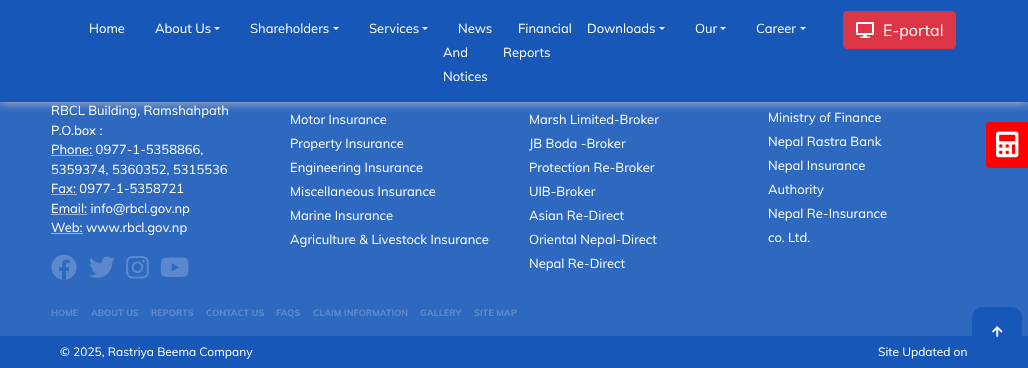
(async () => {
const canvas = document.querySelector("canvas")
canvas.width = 1028
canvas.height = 368
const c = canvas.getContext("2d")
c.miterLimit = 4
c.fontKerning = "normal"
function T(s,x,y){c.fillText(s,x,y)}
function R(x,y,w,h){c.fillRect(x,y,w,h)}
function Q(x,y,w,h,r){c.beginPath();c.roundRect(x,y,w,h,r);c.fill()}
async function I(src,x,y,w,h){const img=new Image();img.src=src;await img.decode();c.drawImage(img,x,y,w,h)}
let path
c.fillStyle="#2e68bf"
R(0,0,1028,368)
c.fillStyle="#ccc"
c.filter="blur(6px)"
c.beginPath()
c.rect(0,0,1028,102)
c.fill()
c.filter="none"
c.fillStyle="#1757b8"
R(0,0,1028,102)
c.font="13px Muli"
c.fillStyle="#fff"
T("Home",89,33)
T("About Us",155,33)
path = new Path2D("M214 27h6l-3 3z")
c.fill(path)
T("Shareholders",250,33)
path = new Path2D("M333 27h6l-3 3z")
c.fill(path)
T("Services",369,33)
path = new Path2D("M422 27h6l-3 3z")
c.fill(path)
T("News",458,33)
T("And",443,57)
T("Notices",443,81)
T("Financial",518,33)
T("Reports",503,57)
T("Downloads",587,33)
path = new Path2D("M659 27h6l-3 3z")
c.fill(path)
T("Our",695,33)
path = new Path2D("M720 27h6l-3 3z")
c.fill(path)
T("Career",756,33)
path = new Path2D("M800 27h6l-3 3z")
c.fill(path)
c.fillStyle="#dc3545"
c.beginPath()
c.roundRect(843.5,11.5,112,37,3.5)
c.fill()
c.strokeStyle="#dc3545"
c.stroke()
await I("1.png",856,22,18,16)
c.font="16px Muli"
c.fillStyle="#fff"
T("E-portal",883,36)
c.font="13px Muli"
T("RBCL Building, Ramshahpath",51,115)
T("P.O.box :",51,135)
path = new Path2D("M51.5 155.5h41")
c.strokeStyle="#fff"
c.setLineDash([1,1])
c.stroke(path)
T("Phone: 0977-1-5358866,",51,154)
T("5359374, 5360352, 5315536",51,174)
T("Fax: 0977-1-5358721",51,193)
path = new Path2D("M51.5 194.5h25")
c.stroke(path)
path = new Path2D("M51.5 214.5h36")
c.stroke(path)
T("Email: info@rbcl.gov.np",51,213)
path = new Path2D("M51.5 233.5h31.5")
c.stroke(path)
T("Web: www.rbcl.gov.np",51,232)
await I("2.png",51,254,26,26)
await I("3.png",89,256,26,22)
await I("4.png",126,255,23,24)
await I("5.png",160,257,29,20)
T("Motor Insurance",290,124)
T("Property Insurance",290,148)
T("Engineering Insurance",290,172)
T("Miscellaneous Insurance",290,196)
T("Marine Insurance",290,220)
T("Agriculture & Livestock Insurance",290,244)
T("Marsh Limited-Broker",529,124)
T("JB Boda -Broker",529,148)
T("Protection Re-Broker",529,172)
T("UIB-Broker",529,196)
T("Asian Re-Direct",529,220)
T("Oriental Nepal-Direct",529,244)
T("Nepal Re-Direct",529,268)
T("Ministry of Finance",768,122)
T("Nepal Rastra Bank",768,146)
T("Nepal Insurance",768,170)
T("Authority",768,194)
T("Nepal Re-Insurance",768,218)
T("co. Ltd.",768,242)
c.font="800 9px Muli"
c.fillStyle="#5c89cd"
T("HOME",51,316)
T("ABOUT US",91,316)
T("REPORTS",151,316)
T("CONTACT US",206,316)
T("FAQS",276,316)
T("CLAIM INFORMATION",313,316)
T("GALLERY",420,316)
T("SITE MAP",474,316)
c.fillStyle="#1757b8"
R(0,336,1028,32)
c.font="12px Muli"
c.fillStyle="#fff"
T("© 2025, Rastriya Beema Company",60,356)
T("Site Updated on",878,356)
c.fillStyle="#f00"
c.beginPath()
c.roundRect(986,122,42,46,[4,0,0,4])
c.fill()
await I("6.png",996,131,23,27)
c.fillStyle="#1757b8"
Q(972,307,50,50,10)
await I("7.png",992,326,11,11)
})()
